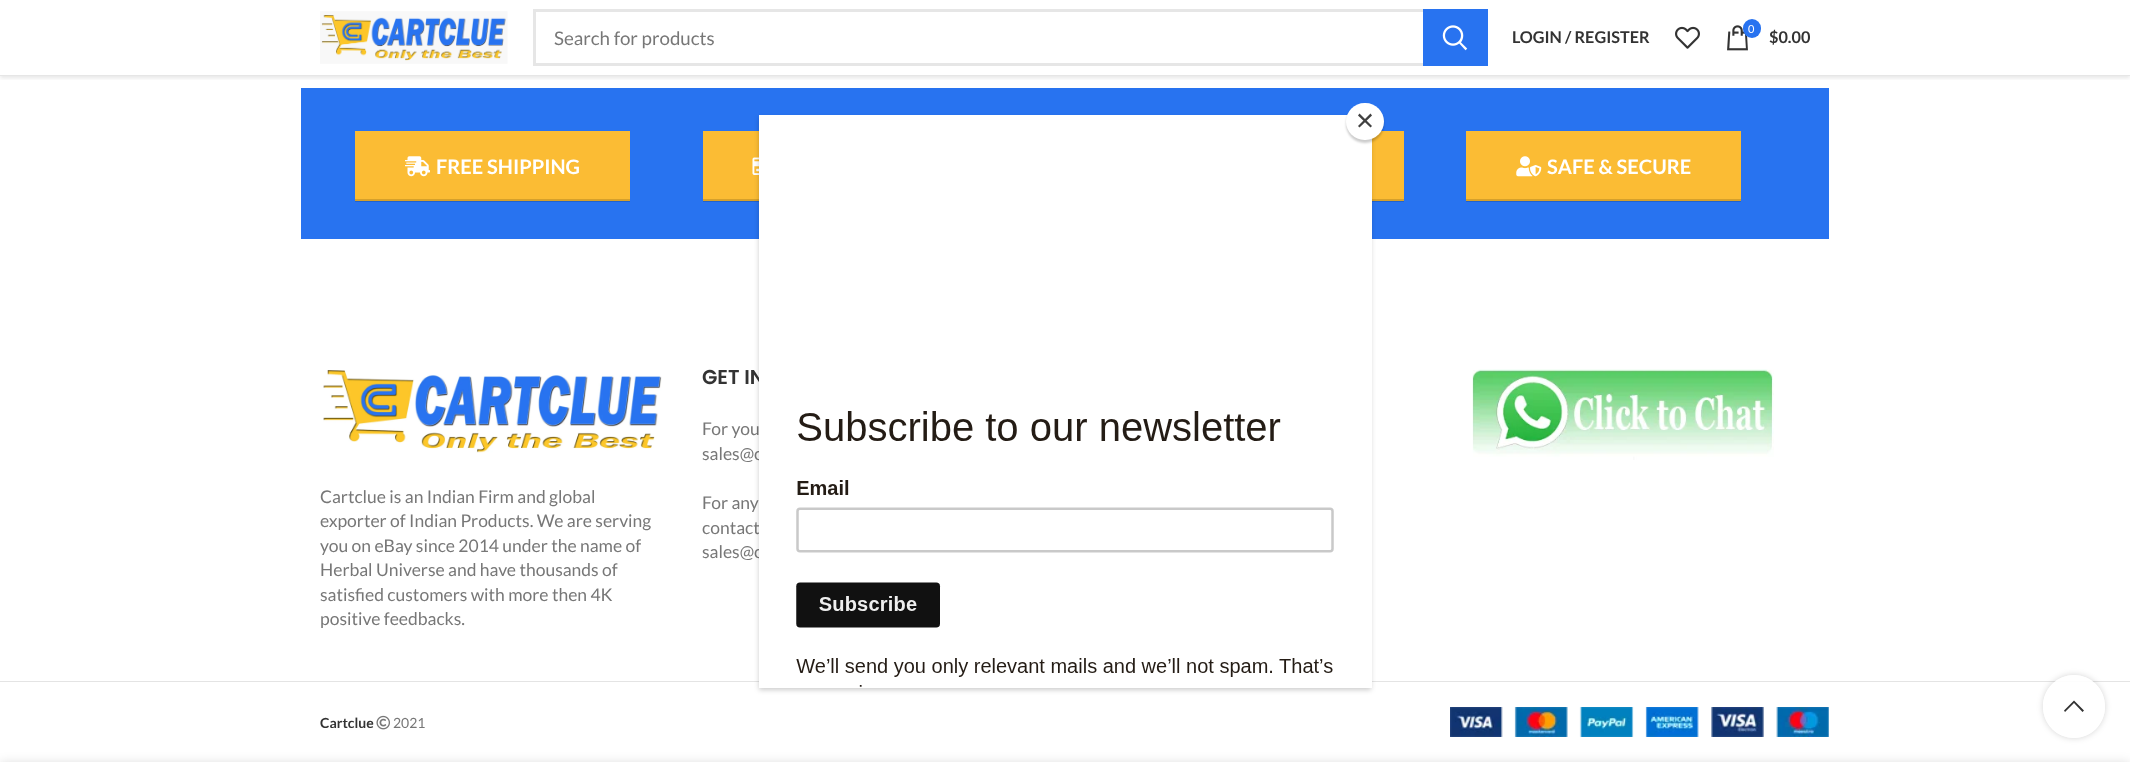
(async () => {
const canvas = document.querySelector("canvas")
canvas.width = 2130
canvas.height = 762
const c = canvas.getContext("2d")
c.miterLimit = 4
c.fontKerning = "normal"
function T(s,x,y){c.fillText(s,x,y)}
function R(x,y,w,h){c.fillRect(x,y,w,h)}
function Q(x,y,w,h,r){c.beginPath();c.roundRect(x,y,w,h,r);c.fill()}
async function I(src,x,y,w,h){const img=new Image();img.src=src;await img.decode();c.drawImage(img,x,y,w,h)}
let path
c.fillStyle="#fff"
R(0,0,2130,762)
c.save()
c.beginPath()
c.rect(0,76,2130,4)
c.clip()
c.fillStyle="#0000001a"
c.filter="blur(2px)"
c.beginPath()
c.rect(0,1,2130,77)
c.fill()
c.filter="none"
c.restore()
c.fillStyle="#e6e6e6"
R(0,75,2130,1)
await I("1.png",320,11,188,53)
c.strokeStyle="#e6e6e6"
c.lineWidth=3
c.strokeRect(534.5,10.5,952,54)
c.font="18.75px Lato"
c.fillStyle="#777"
T("Search for products",554,45)
c.fillStyle="#2873f0"
R(1423,9,65,57)
await I("2.png",1442,25,26,26)
c.font="bold 16.25px Lato"
c.fillStyle="#333"
T("LOGIN / REGISTER",1512,43)
await I("3.png",1675,26,25,23)
await I("4.png",1727,25,21,26)
c.fillStyle="#2873f0"
Q(1743,19,18,19,9)
c.font="11px Lato"
c.fillStyle="#fff"
T("0",1748,33)
c.font="bold 16.25px Lato"
c.fillStyle="#333"
T("$0.00",1769,43)
c.fillStyle="#2873f0"
R(301,88,1528,151)
c.fillStyle="#2262cc"
R(1466,201,275,1)
R(1372,201,32,1)
R(703,201,56,1)
R(355,201,275,1)
c.fillStyle="#fbbc34"
R(355,131,275,68)
c.fillStyle="#d5a02c"
R(355,199,275,2)
await I("5.png",405,156,25,21)
c.font="bold 20px Lato"
c.fillStyle="#fff"
T("FREE SHIPPING",436,174)
c.fillStyle="#fbbc34"
R(703,131,56,68)
c.fillStyle="#d5a02c"
R(703,199,56,2)
await I("6.png",752,157,7,18)
c.fillStyle="#fbbc34"
R(1372,131,32,68)
c.fillStyle="#d5a02c"
R(1372,199,32,2)
c.fillStyle="#fbbc34"
R(1466,131,275,68)
c.fillStyle="#d5a02c"
R(1466,199,275,2)
await I("7.png",1516,156,26,21)
c.fillStyle="#fff"
T("SAFE & SECURE",1547,174)
c.font="600 20px Poppins"
c.fillStyle="#333"
T("GET IN",702,384)
c.font="17.5px Lato"
c.fillStyle="#777"
T("For you",702,435)
T("sales@c",702,460)
T("For any",702,509)
T("contact",702,534)
T("sales@c",702,558)
await I("8.png",1472,369,302,91)
await I("9.png",323,370,339,83)
T("Cartclue is an Indian Firm and global",320,503)
T("exporter of Indian Products. We are serving",320,527)
T("you on eBay since 2014 under the name of",320,552)
T("Herbal Universe and have thousands of",320,576)
T("satisfied customers with more then 4K",320,601)
T("positive feedbacks.",320,625)
c.fillStyle="#e4e4e4"
R(0,681,2130,1)
c.font="bold 14px Lato"
c.fillStyle="#333"
T("Cartclue",320,728)
await I("10.png",376,715,14,15)
c.font="14px Lato"
c.fillStyle="#777"
T("2021",393,728)
await I("11.png",1450,707,379,30)
c.fillStyle="#00000033"
c.filter="blur(2.5px)"
c.beginPath()
c.rect(759,118,612,572)
c.fill()
c.filter="none"
await I("12.png",759,115,613,573)
c.filter="blur(1px)"
c.beginPath()
c.roundRect(1346,105,38,38,19)
c.fill()
c.filter="none"
c.fillStyle="#fff"
Q(1346,103,38,37,18.5)
c.fillStyle="#414141"
path = new Path2D("M1370.5 113.5l1.5 2l-12.5 12l-1.5-1.5z")
c.fill(path)
path = new Path2D("M1358 115.5l1.5-2l12.5 12.5l-1.5 1.5z")
c.fill(path)
c.save()
path = new Path2D("M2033 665h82v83h-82zm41 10c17 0 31 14 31 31v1c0 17-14 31-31 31c-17 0-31-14-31-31v-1c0-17 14-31 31-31z")
c.clip(path,"evenodd")
c.fillStyle="#0000002b"
c.filter="blur(3px)"
c.beginPath()
c.roundRect(2043,675,62,63,31)
c.fill()
c.filter="none"
c.restore()
c.fillStyle="#ffffffe6"
Q(2043,675,62,63,31)
c.fillStyle="#333"
path = new Path2D("M2074 700.5l10 10l-1.5 1.5l-8.5-9l-9 9l-1-1.5z")
c.fill(path)
c.fillStyle="#00000024"
c.filter="blur(5.5px)"
c.beginPath()
c.rect(0,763,2130,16)
c.fill()
c.filter="none"
})()
